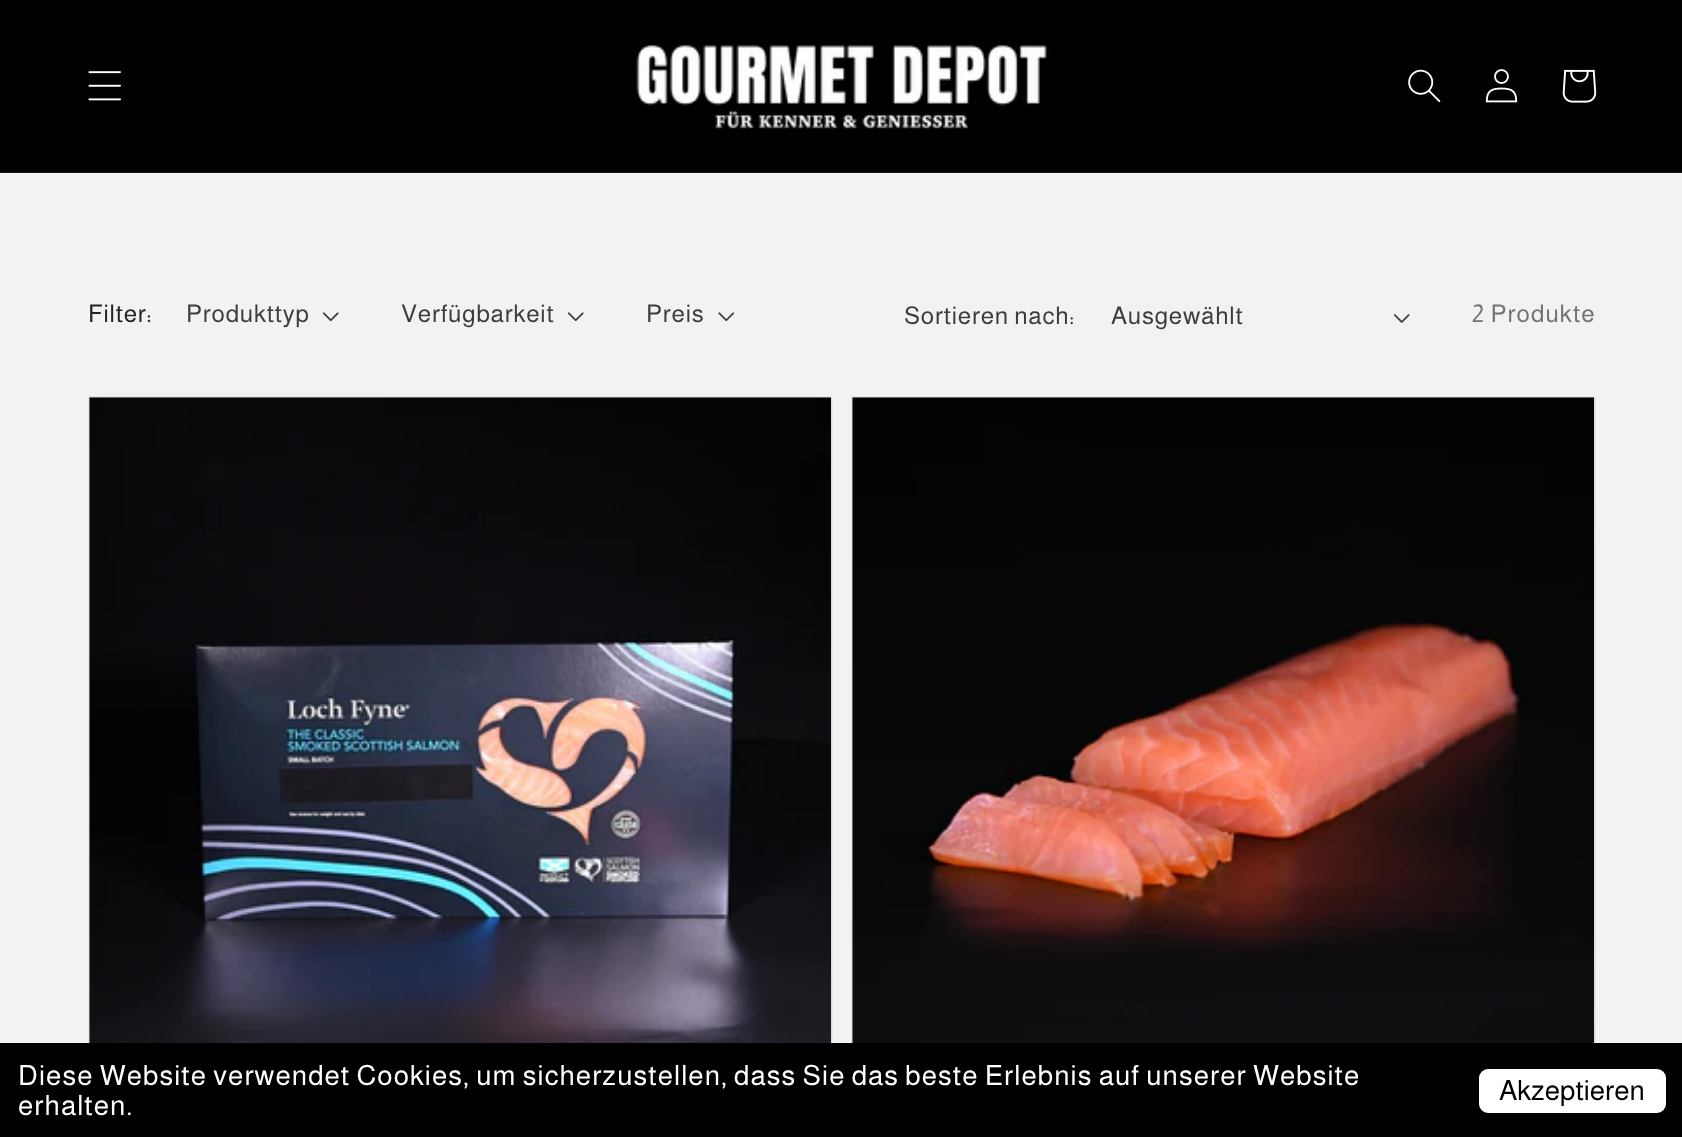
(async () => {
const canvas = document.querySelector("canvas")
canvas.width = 1682
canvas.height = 1137
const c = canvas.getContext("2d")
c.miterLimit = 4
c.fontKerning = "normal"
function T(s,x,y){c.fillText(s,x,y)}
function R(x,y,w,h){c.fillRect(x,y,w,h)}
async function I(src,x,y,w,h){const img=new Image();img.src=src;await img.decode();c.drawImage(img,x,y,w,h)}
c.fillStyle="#f2f2f2"
R(0,0,1682,1137)
c.fillStyle="#000"
R(0,0,1682,172)
c.fillStyle="#141414"
R(0,172,1682,1)
await I("1.png",88,71,33,30)
await I("2.png",636,45,414,84)
await I("3.png",1408,69,33,34)
await I("4.png",1485,69,33,34)
await I("5.png",1562,69,35,34)
c.letterSpacing="0.75px"
c.font="24.5px Almarai"
c.fillStyle="#242424"
T("Filter:",88,322)
c.fillStyle="#3d3d3d"
T("Produkttyp",186,322)
await I("6.png",322,312,17,10)
T("Verfügbarkeit",401,322)
await I("6.png",567,312,17,10)
T("Preis",646,322)
await I("7.png",718,312,17,10)
T("Sortieren nach:",904,324)
T("Ausgewählt",1111,324)
await I("8.png",1394,314,16,9)
c.letterSpacing="1.05px"
c.fillStyle="#737373"
T("2 Produkte",1472,322)
c.strokeStyle="#e8e8e8"
c.lineWidth=2
c.strokeRect(89,397,743,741)
await I("9.png",89,397,743,646)
c.strokeRect(852,397,743,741)
await I("10.png",852,397,743,646)
c.fillStyle="#000"
R(0,1043,1682,94)
c.font="28px Almarai"
c.fillStyle="#fff"
T("Diese Website verwendet Cookies, um sicherzustellen, dass Sie das beste Erlebnis auf unserer Website",18,1085)
T("erhalten.",18,1115)
c.beginPath()
c.roundRect(1481,1071,183,40,7)
c.fill()
c.strokeStyle="#fff"
c.lineWidth=4
c.stroke()
c.letterSpacing="0px"
c.fillStyle="#000"
T("Akzeptieren",1499,1100)
})()
